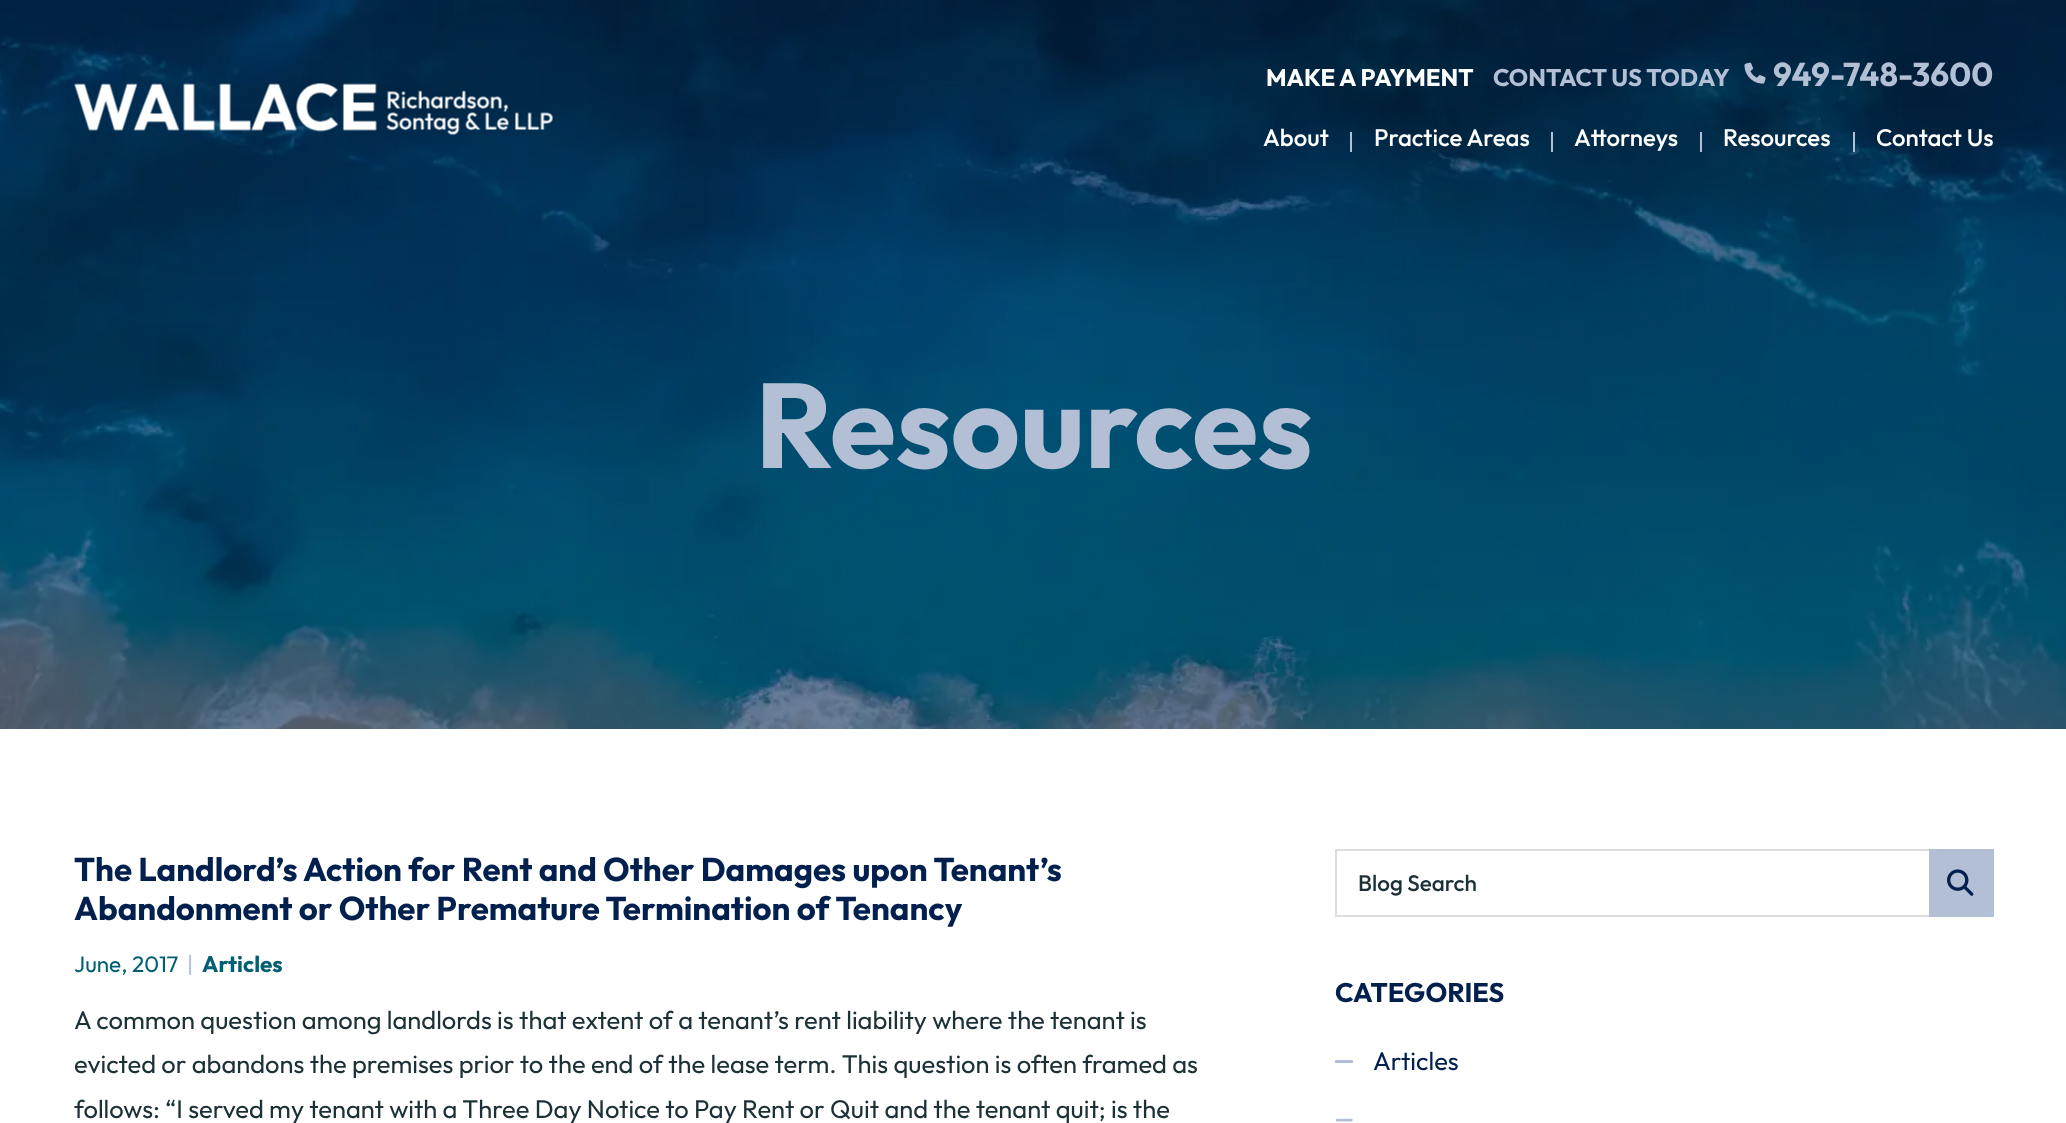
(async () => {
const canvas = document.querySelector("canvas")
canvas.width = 2066
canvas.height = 1123
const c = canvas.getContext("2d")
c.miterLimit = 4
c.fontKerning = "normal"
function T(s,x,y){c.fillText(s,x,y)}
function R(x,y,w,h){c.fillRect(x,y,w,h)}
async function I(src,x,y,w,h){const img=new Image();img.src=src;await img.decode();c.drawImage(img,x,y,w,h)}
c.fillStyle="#fff"
R(0,0,2066,1123)
await I("3.png",0,0,2066,729)
await I("1.png",74,83,479,52)
c.font="bold 24px Outfit"
T("MAKE A PAYMENT",1266,86)
c.fillStyle="#b3bfd5"
T("CONTACT US TODAY",1493,86)
await I("2.png",1744,62,22,22)
c.font="bold 33px Outfit"
T("949-748-3600",1773,86)
c.font="500 24px Outfit"
c.fillStyle="#fff"
T("About",1263,146)
c.fillStyle="#b3bfd5"
R(1350,132,2,20)
c.fillStyle="#fff"
T("Practice Areas",1374,146)
c.fillStyle="#b3bfd5"
R(1551,132,2,20)
c.fillStyle="#fff"
T("Attorneys",1574,146)
c.fillStyle="#b3bfd5"
R(1700,132,2,20)
c.fillStyle="#fff"
T("Resources",1723,146)
c.fillStyle="#b3bfd5"
R(1853,132,2,20)
c.fillStyle="#fff"
T("Contact Us",1876,146)
c.font="bold 120px Outfit"
c.fillStyle="#b3bfd5"
T("Resources",755,468)
c.font="bold 33px Outfit"
c.fillStyle="#01204e"
T("The Landlord’s Action for Rent and Other Damages upon Tenant’s",74,881)
T("Abandonment or Other Premature Termination of Tenancy",74,920)
c.font="22.5px Outfit"
c.fillStyle="#005f73"
T("June, 2017",74,972)
c.fillStyle="#b3bfd5"
T("|",187,972)
c.font="bold 22.5px Outfit"
c.fillStyle="#005f73"
T("Articles",202,972)
c.font="25.5px Outfit"
c.fillStyle="#1b3137"
T("A common question among landlords is that extent of a tenant’s rent liability where the tenant is",74,1029)
T("evicted or abandons the premises prior to the end of the lease term. This question is often framed as",74,1073)
T("follows: “I served my tenant with a Three Day Notice to Pay Rent or Quit and the tenant quit; is the",74,1118)
c.fillStyle="#ddd"
R(1335,849,594,2)
R(1335,915,594,2)
R(1335,849,2,68)
c.fillStyle="#b3bfd5"
R(1929,849,65,68)
await I("4.png",1947,869,27,27)
c.font="500 22.5px Outfit"
c.fillStyle="#1b3137"
T("Blog Search",1358,891)
c.font="bold 27px Outfit"
c.fillStyle="#01204e"
T("CATEGORIES",1335,1002)
c.fillStyle="#b3bfd5"
R(1335,1060,18,3)
c.font="25.5px Outfit"
c.fillStyle="#01204e"
T("Articles",1373,1070)
await I("5.png",1335,1118,18,4)
})()
